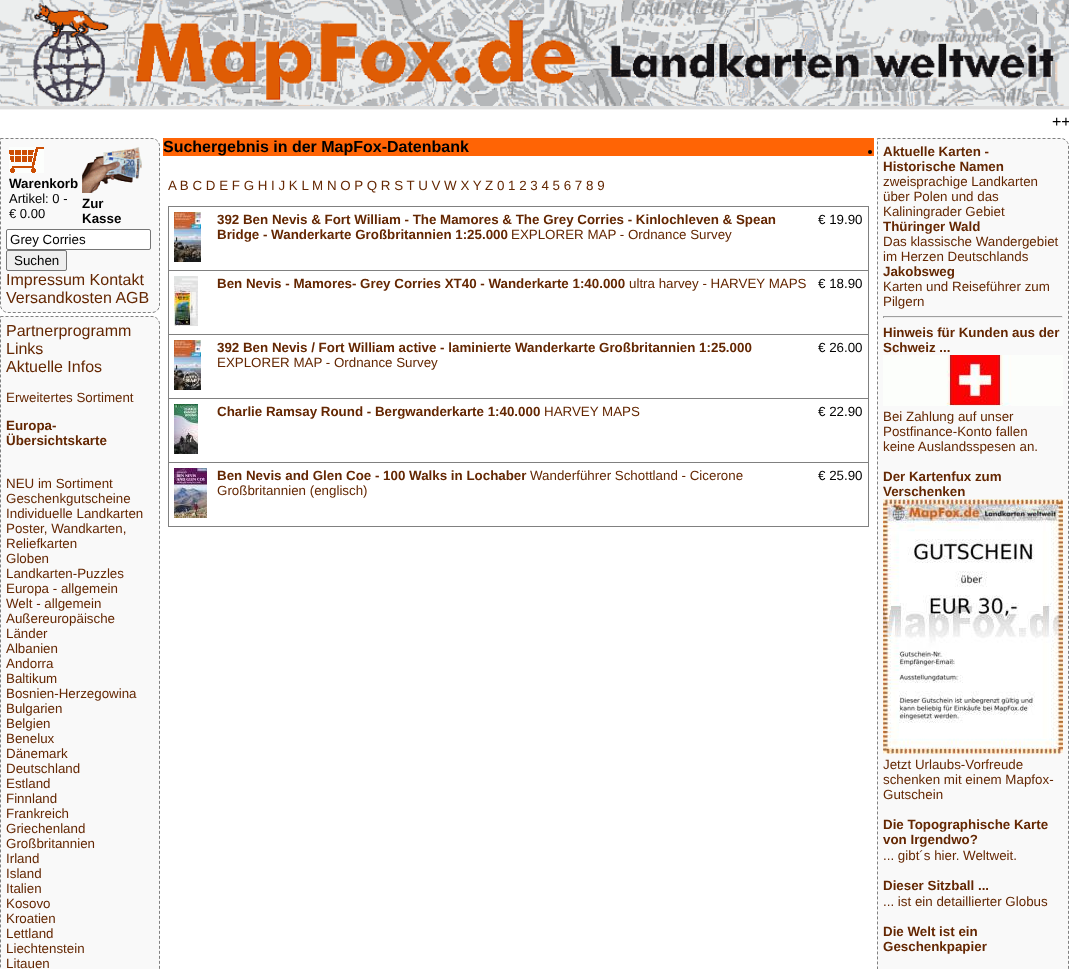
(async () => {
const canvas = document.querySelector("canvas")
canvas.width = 1069
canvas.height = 969
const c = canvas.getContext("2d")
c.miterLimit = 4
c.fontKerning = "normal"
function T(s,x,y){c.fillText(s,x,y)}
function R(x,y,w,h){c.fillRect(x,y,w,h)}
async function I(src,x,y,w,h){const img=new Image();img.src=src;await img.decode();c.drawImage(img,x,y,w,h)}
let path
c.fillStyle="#fff"
R(0,0,1069,969)
c.fillStyle="#f1f1f1"
R(0,109,1069,1)
await I("1.png",0,0,1069,106)
c.fillStyle="#ddd"
R(0,106,1069,3)
c.font="16px Liberation Sans"
c.fillStyle="#000"
T("++",1052,127)
c.fillStyle="#f9f9f9"
c.beginPath()
c.roundRect(0,138,160,175,[0,8,8,8])
c.fill()
path = new Path2D("M.5 138.5h151.5c4 0 7.5 3.5 7.5 7.5v159c0 4-3.5 7.5-7.5 7.5h-144c-4 0-7.5-3.5-7.5-7.5z")
c.strokeStyle="#808080"
c.setLineDash([3,2])
c.stroke(path)
await I("2.png",9,147,35,26)
c.font="bold 13.35px Liberation Sans"
c.fillStyle="#000"
T("Warenkorb",9,188)
c.font="13px Liberation Sans"
T("Artikel: 0 -",9,203)
T("€ 0.00",9,218)
await I("3.png",82,147,60,46)
c.font="bold 13.35px Liberation Sans"
T("Zur",82,208)
T("Kasse",82,223)
c.fillStyle="#fff"
c.beginPath()
c.roundRect(6.5,229.5,144,20,1.5)
c.fill()
c.strokeStyle="#767676"
c.setLineDash([])
c.stroke()
c.font="13.35px Liberation Sans"
c.fillStyle="#000"
T("Grey Corries",10,244)
c.fillStyle="#efefef"
c.beginPath()
c.roundRect(6.5,250.5,60,20,1.5)
c.fill()
c.stroke()
c.fillStyle="#000"
T("Suchen",14,265)
c.font="16px Liberation Sans"
c.fillStyle="#642702"
T("Impressum Kontakt",6,285)
T("Versandkosten AGB",6,303)
c.fillStyle="#ff6405"
R(163,138,711,18)
c.font="bold 16px Liberation Sans"
c.fillStyle="#000"
T("Suchergebnis in der MapFox-Datenbank",163,152)
c.fillStyle="#f9f9f9"
path = new Path2D("M877 138h184c4.5 0 8 3.5 8 8v823c0 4.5-3.5 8-8 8h-176c-4.5 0-8-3.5-8-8z")
c.fill(path)
path = new Path2D("M877.5 138.5h183.5c4 0 7.5 3.5 7.5 7.5v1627c0 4-3.5 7.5-7.5 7.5h-176c-4 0-7.5-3.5-7.5-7.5z")
c.strokeStyle="#808080"
c.setLineDash([3,2])
c.stroke(path)
c.fillStyle="#000"
c.beginPath()
c.arc(870,152,2,0,7)
c.fill()
c.font="bold 13.35px Liberation Sans"
c.fillStyle="#642702"
T("Aktuelle Karten -",883,156)
T("Historische Namen",883,171)
c.font="13.35px Liberation Sans"
T("zweisprachige Landkarten",883,186)
T("über Polen und das",883,201)
T("Kaliningrader Gebiet",883,216)
c.font="bold 13.35px Liberation Sans"
T("Thüringer Wald",883,231)
c.font="13.35px Liberation Sans"
T("Das klassische Wandergebiet",883,246)
T("im Herzen Deutschlands",883,261)
c.font="bold 13.35px Liberation Sans"
T("Jakobsweg",883,276)
c.font="13.35px Liberation Sans"
T("Karten und Reiseführer zum",883,291)
T("Pilgern",883,306)
c.fillStyle="#9f9f9f"
R(883,316,180,1)
c.fillStyle="#eee"
R(1062,316,1,2)
R(883,317,180,1)
c.fillStyle="#9f9f9f"
R(883,316,1,2)
c.font="bold 13.35px Liberation Sans"
c.fillStyle="#642702"
T("Hinweis für Kunden aus der",883,337)
T("Schweiz ...",883,352)
await I("4.png",883,355,180,51)
c.font="13.35px Liberation Sans"
T("Bei Zahlung auf unser",883,421)
T("Postfinance-Konto fallen",883,436)
T("keine Auslandsspesen an.",883,451)
c.font="bold 13.35px Liberation Sans"
T("Der Kartenfux zum",883,481)
T("Verschenken",883,496)
await I("5.png",883,499,180,255)
c.font="13.35px Liberation Sans"
T("Jetzt Urlaubs-Vorfreude",883,769)
T("schenken mit einem Mapfox-",883,784)
T("Gutschein",883,799)
c.font="bold 13.35px Liberation Sans"
T("Die Topographische Karte",883,829)
T("von Irgendwo?",883,844)
c.font="13.35px Liberation Sans"
T("... gibt´s hier. Weltweit.",883,860)
c.font="bold 13.35px Liberation Sans"
T("Dieser Sitzball ...",883,890)
c.font="13.35px Liberation Sans"
T("... ist ein detaillierter Globus",883,906)
c.font="bold 13.35px Liberation Sans"
T("Die Welt ist ein",883,936)
T("Geschenkpapier",883,951)
c.fillStyle="#f9f9f9"
path = new Path2D("M0 316h152c4.5 0 8 3.5 8 8v645c0 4.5-3.5 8-8 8h-144c-4.5 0-8-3.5-8-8z")
c.fill(path)
path = new Path2D("M.5 316.5h151.5c4 0 7.5 3.5 7.5 7.5v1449c0 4-3.5 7.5-7.5 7.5h-144c-4 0-7.5-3.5-7.5-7.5z")
c.stroke(path)
c.font="16px Liberation Sans"
c.fillStyle="#642702"
T("Partnerprogramm",6,336)
T("Links",6,354)
T("Aktuelle Infos",6,372)
c.font="13.35px Liberation Sans"
T("Erweitertes Sortiment",6,402)
c.font="bold 13.35px Liberation Sans"
T("Europa-",6,430)
T("Übersichtskarte",6,445)
c.font="13.35px Liberation Sans"
T("NEU im Sortiment",6,488)
T("Geschenkgutscheine",6,503)
T("Individuelle Landkarten",6,518)
T("Poster, Wandkarten,",6,533)
T("Reliefkarten",6,548)
T("Globen",6,563)
T("Landkarten-Puzzles",6,578)
T("Europa - allgemein",6,593)
T("Welt - allgemein",6,608)
T("Außereuropäische",6,623)
T("Länder",6,638)
T("Albanien",6,653)
T("Andorra",6,668)
T("Baltikum",6,683)
T("Bosnien-Herzegowina",6,698)
T("Bulgarien",6,713)
T("Belgien",6,728)
T("Benelux",6,743)
T("Dänemark",6,758)
T("Deutschland",6,773)
T("Estland",6,788)
T("Finnland",6,803)
T("Frankreich",6,818)
T("Griechenland",6,833)
T("Großbritannien",6,848)
T("Irland",6,863)
T("Island",6,878)
T("Italien",6,893)
T("Kosovo",6,908)
T("Kroatien",6,923)
T("Lettland",6,938)
T("Liechtenstein",6,953)
T("Litauen",6,968)
T("A B C D E F G H I J K L M N O P Q R S T U V W X Y Z 0 1 2 3 4 5 6 7 8 9",168,190)
c.fillStyle="#808080"
R(168,206,701,1)
R(868,206,1,321)
R(168,526,701,1)
R(168,206,1,321)
await I("6.png",174,212,27,50)
c.font="bold 13.35px Liberation Sans"
c.fillStyle="#642702"
T("392 Ben Nevis & Fort William - The Mamores & The Grey Corries - Kinlochleven & Spean",217,224)
T("Bridge - Wanderkarte Großbritannien 1:25.000",217,239)
c.font="13.35px Liberation Sans"
T("EXPLORER MAP - Ordnance Survey",511,239)
c.fillStyle="#000"
T("€ 19.90",818,224)
await I("7.png",174,276,24,50)
c.font="bold 13.35px Liberation Sans"
c.fillStyle="#642702"
T("Ben Nevis - Mamores- Grey Corries XT40 - Wanderkarte 1:40.000",217,288)
c.font="13.35px Liberation Sans"
T("ultra harvey - HARVEY MAPS",629,288)
c.fillStyle="#808080"
R(168,270,701,1)
c.fillStyle="#000"
T("€ 18.90",818,288)
await I("8.png",174,340,27,50)
c.font="bold 13.35px Liberation Sans"
c.fillStyle="#642702"
T("392 Ben Nevis / Fort William active - laminierte Wanderkarte Großbritannien 1:25.000",217,352)
c.font="13.35px Liberation Sans"
T("EXPLORER MAP - Ordnance Survey",217,367)
c.fillStyle="#808080"
R(168,334,701,1)
c.fillStyle="#000"
T("€ 26.00",818,352)
await I("9.png",174,404,24,50)
c.font="bold 13.35px Liberation Sans"
c.fillStyle="#642702"
T("Charlie Ramsay Round - Bergwanderkarte 1:40.000",217,416)
c.font="13.35px Liberation Sans"
T("HARVEY MAPS",544,416)
c.fillStyle="#808080"
R(168,398,701,1)
c.fillStyle="#000"
T("€ 22.90",818,416)
await I("10.png",174,468,33,50)
c.font="bold 13.35px Liberation Sans"
c.fillStyle="#642702"
T("Ben Nevis and Glen Coe - 100 Walks in Lochaber",217,480)
c.font="13.35px Liberation Sans"
T("Wanderführer Schottland - Cicerone",530,480)
T("Großbritannien (englisch)",217,495)
c.fillStyle="#808080"
R(168,462,701,1)
c.fillStyle="#000"
T("€ 25.90",818,480)
})()
